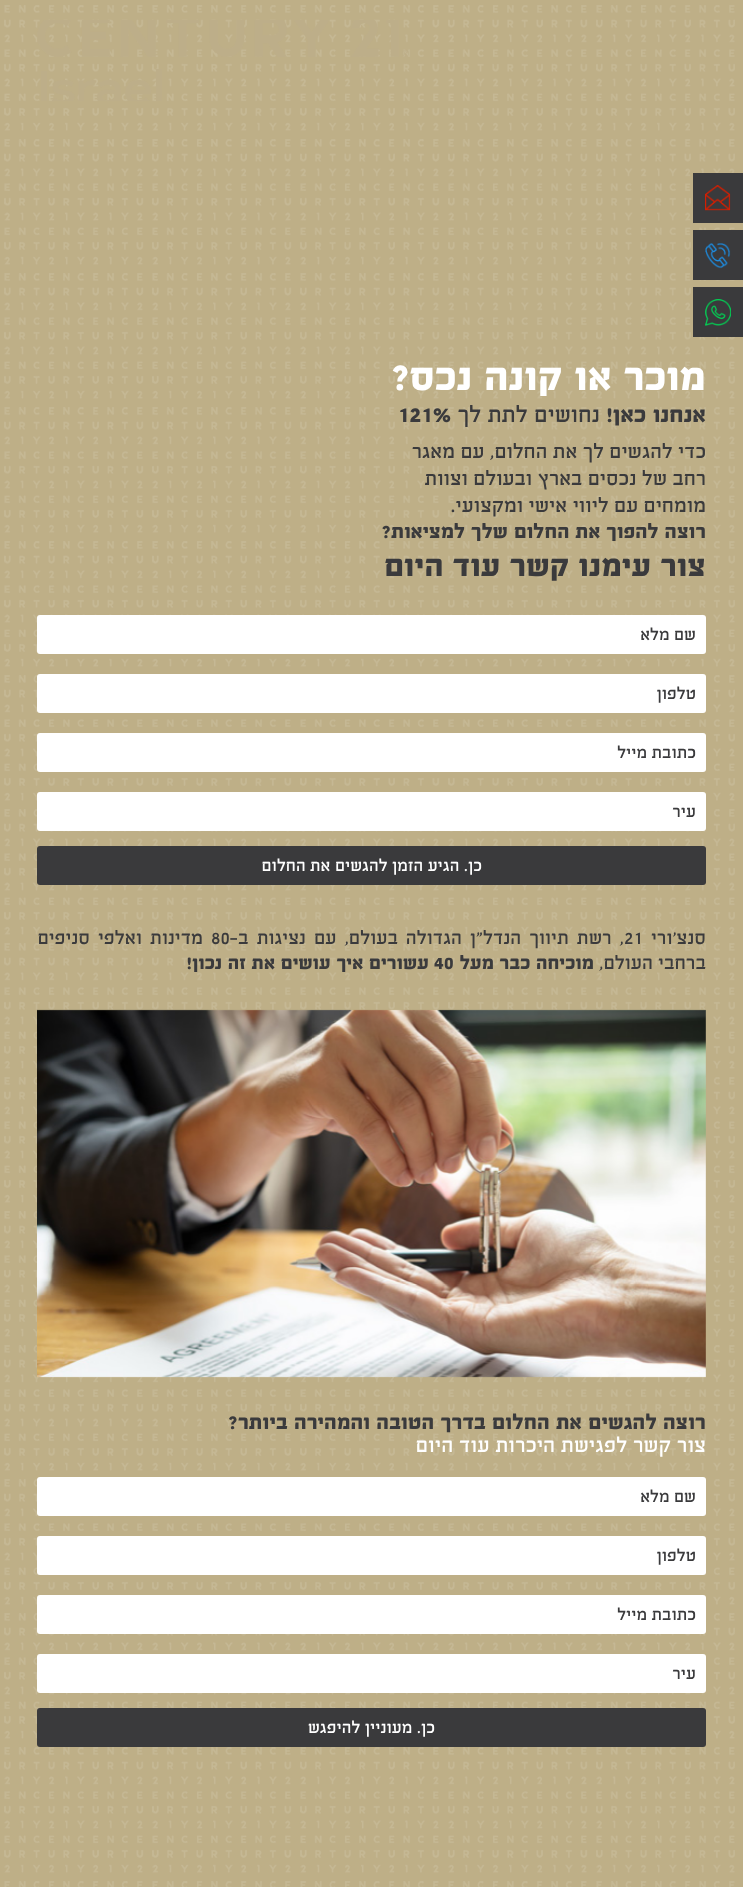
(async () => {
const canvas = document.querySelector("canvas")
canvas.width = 743
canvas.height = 1887
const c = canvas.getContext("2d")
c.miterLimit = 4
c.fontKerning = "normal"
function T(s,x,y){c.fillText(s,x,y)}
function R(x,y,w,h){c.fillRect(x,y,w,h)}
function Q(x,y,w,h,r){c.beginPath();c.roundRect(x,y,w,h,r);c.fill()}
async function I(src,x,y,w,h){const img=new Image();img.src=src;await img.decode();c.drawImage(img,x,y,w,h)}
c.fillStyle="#beaf87"
R(0,0,743,1887)
await I("1.png",4,5,731,1882)
await I("2.png",37,20,372,81)
c.fillStyle="#3a3a3c"
R(693,173,50,50)
await I("3.png",705,185,26,26)
R(693,230,50,50)
await I("4.png",705,243,26,26)
R(693,287,50,50)
await I("5.png",705,299,26,27)
c.direction="rtl"
c.font="bold 44.75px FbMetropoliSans"
c.fillStyle="#fff"
T("מוכר או קונה נכס?",706,390)
c.font="bold 25.25px FbMetropoliSans"
c.fillStyle="#3a3a3c"
T("אנחנו כאן!",706,422)
c.font="25.25px FbMetropoliSans"
T("נחושים לתת לך",600,422)
c.direction="ltr"
c.font="bold 25.25px FbMetropoliSans"
T("121%",398,422)
c.direction="rtl"
c.font="22.4px FbMetropoliSans"
T("כדי להגשים לך את החלום, עם מאגר",706,458)
T("רחב של נכסים בארץ ובעולם וצוות",706,485)
T("מומחים עם ליווי אישי ומקצועי.",706,512)
c.font="bold 22.4px FbMetropoliSans"
T("רוצה להפוך את החלום שלך למציאות?",706,538)
c.font="bold 35px FbMetropoliSans"
T("צור עימנו קשר עוד היום",706,576)
c.fillStyle="#fff"
Q(37,615,669,39,3)
c.font="18.6px FbMetropoliSans"
c.fillStyle="#3a3a3c"
T("שם מלא",696,640)
c.fillStyle="#fff"
Q(37,674,669,39,3)
c.fillStyle="#3a3a3c"
T("טלפון",696,699)
c.fillStyle="#fff"
Q(37,733,669,39,3)
c.fillStyle="#3a3a3c"
T("כתובת מייל",696,758)
c.fillStyle="#fff"
Q(37,792,669,39,3)
c.fillStyle="#3a3a3c"
T("עיר",696,817)
Q(37,846,669,39,3)
c.fillStyle="#fff"
T("כן. הגיע הזמן להגשים את החלום",482,871)
c.font="21px FbMetropoliSans"
c.fillStyle="#3a3a3c"
T("סנצ'ורי",706,944)
c.direction="ltr"
T("21",624,944)
c.wordSpacing="3px"
c.direction="rtl"
T(", רשת תיווך הנדל\"ן הגדולה",624,944)
T("בעולם, עם נציגות ב-",398,944)
c.wordSpacing="0px"
c.direction="ltr"
T("80",211,944)
c.wordSpacing="3px"
c.direction="rtl"
T("מדינות ואלפי",203,944)
c.wordSpacing="0px"
T("סניפים",90,944)
T("ברחבי העולם,",706,969)
c.font="bold 21px FbMetropoliSans"
T("מוכיחה כבר מעל",594,969)
c.direction="ltr"
T("40",434,969)
c.direction="rtl"
T("עשורים איך עושים את זה נכון!",429,969)
await I("6.png",37,1009,669,369)
c.font="bold 23.25px FbMetropoliSans"
T("רוצה להגשים את החלום בדרך הטובה והמהירה ביותר?",706,1429)
c.font="23.25px FbMetropoliSans"
c.fillStyle="#fff"
T("צור קשר לפגישת היכרות עוד היום",706,1452)
Q(37,1477,669,39,3)
c.font="18.6px FbMetropoliSans"
c.fillStyle="#3a3a3c"
T("שם מלא",696,1502)
c.fillStyle="#fff"
Q(37,1536,669,39,3)
c.fillStyle="#3a3a3c"
T("טלפון",696,1561)
c.fillStyle="#fff"
Q(37,1595,669,39,3)
c.fillStyle="#3a3a3c"
T("כתובת מייל",696,1620)
c.fillStyle="#fff"
Q(37,1654,669,39,3)
c.fillStyle="#3a3a3c"
T("עיר",696,1679)
Q(37,1708,669,39,3)
c.fillStyle="#fff"
T("כן. מעוניין להיפגש",435,1733)
})()
